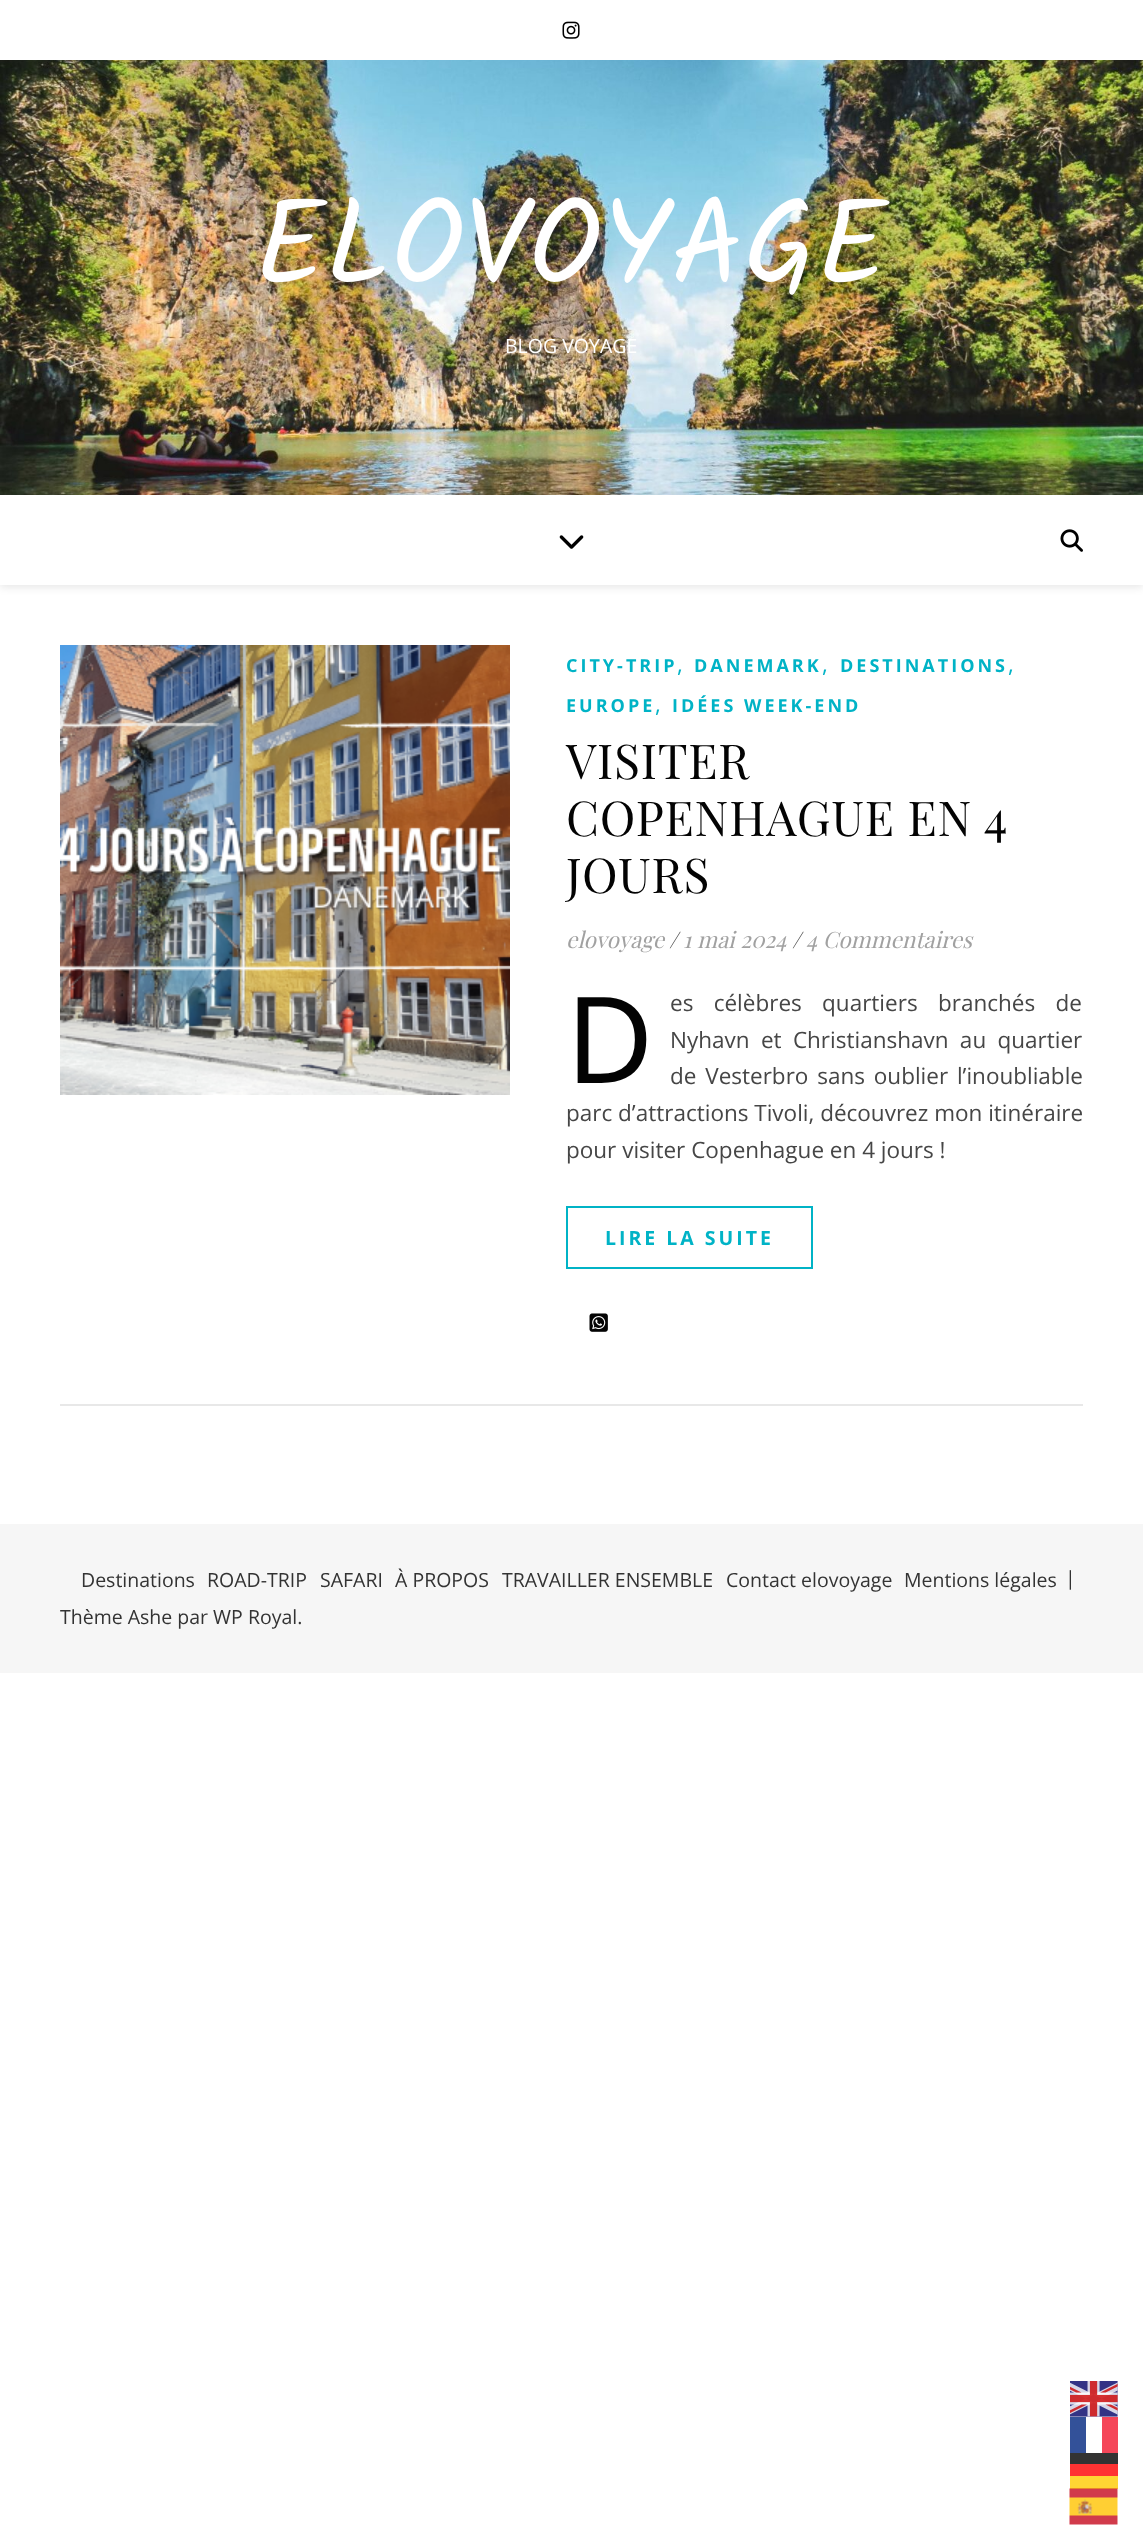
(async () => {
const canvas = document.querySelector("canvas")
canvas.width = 1143
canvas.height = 2547
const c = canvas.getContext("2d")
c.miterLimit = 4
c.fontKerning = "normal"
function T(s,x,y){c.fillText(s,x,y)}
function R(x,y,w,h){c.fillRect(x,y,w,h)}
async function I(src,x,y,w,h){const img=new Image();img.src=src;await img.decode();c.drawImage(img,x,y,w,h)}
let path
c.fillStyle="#fff"
R(0,0,1143,2547)
await I("1.png",562,21,18,18)
await I("2.png",0,60,1143,435)
c.font="120px Kalam"
T("ELOVOYAGE",255,284)
c.font="19.5px Open Sans"
T("BLOG VOYAGE",505,353)
c.save()
path = new Path2D("M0 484h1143v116h-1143zm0 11h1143v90h-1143z")
c.clip(path,"evenodd")
c.fillStyle="#0000001a"
c.filter="blur(4px)"
c.beginPath()
c.rect(0,497,1143,90)
c.fill()
c.filter="none"
c.restore()
await I("3.png",559,535,25,14)
await I("4.png",1060,529,23,23)
c.fillStyle="#e8e8e8"
R(60,1404,1023,2)
await I("5.png",60,645,450,450)
c.letterSpacing="3px"
c.font="bold 18px Open Sans"
c.fillStyle="#00b3c6"
T("CITY-TRIP",566,672)
c.letterSpacing="0px"
c.font="22.5px Open Sans"
T(",",677,672)
c.letterSpacing="3px"
c.font="bold 18px Open Sans"
T("DANEMARK",694,672)
c.letterSpacing="0px"
c.font="22.5px Open Sans"
T(",",822,672)
c.letterSpacing="3px"
c.font="bold 18px Open Sans"
T("DESTINATIONS",840,672)
c.letterSpacing="0px"
c.font="22.5px Open Sans"
T(",",1008,672)
c.letterSpacing="3px"
c.font="bold 18px Open Sans"
T("EUROPE",566,712)
c.letterSpacing="0px"
c.font="22.5px Open Sans"
T(",",655,712)
c.letterSpacing="3px"
c.font="bold 18px Open Sans"
T("IDÉES WEEK-END",672,712)
c.letterSpacing="0.75px"
c.font="48px Playfair Display"
c.fillStyle="#030303"
T("VISITER",566,779)
T("COPENHAGUE EN 4",566,836)
T("JOURS",566,893)
c.letterSpacing="0px"
c.font="italic 22.5px Playfair Display"
c.fillStyle="#a1a1a1"
T("elovoyage",566,948)
c.fillStyle="#464646"
T("/",669,948)
c.fillStyle="#a1a1a1"
T("1 mai 2024",683,948)
c.fillStyle="#464646"
T("/",792,948)
c.fillStyle="#a1a1a1"
T("4 Commentaires",806,948)
c.font="120px Noto Sans"
c.fillStyle="#030303"
T("D",566,1083)
c.wordSpacing="14.5px"
c.font="22.5px Open Sans"
c.fillStyle="#464646"
T("es célèbres quartiers branchés de",670,1011)
c.wordSpacing="5.5px"
T("Nyhavn et Christianshavn au quartier",670,1048)
c.wordSpacing="3px"
T("de Vesterbro sans oublier l’inoubliable",670,1084)
c.wordSpacing="0px"
T("parc d’attractions Tivoli, découvrez mon itinéraire",566,1121)
T("pour visiter Copenhague en 4 jours !",566,1158)
c.strokeStyle="#00b3c6"
c.lineWidth=2
c.strokeRect(567,1207,245,61)
c.letterSpacing="3px"
c.font="bold 19.5px Open Sans"
c.fillStyle="#00b3c6"
T("LIRE LA SUITE",605,1245)
await I("6.png",589,1313,19,19)
c.fillStyle="#f6f6f6"
R(0,1524,1143,149)
c.letterSpacing="0px"
c.font="19.5px Open Sans"
c.fillStyle="#333"
T("Destinations",81,1587)
T("ROAD-TRIP",207,1587)
T("SAFARI",320,1587)
T("À PROPOS",395,1587)
T("TRAVAILLER ENSEMBLE",502,1587)
T("Contact elovoyage",726,1587)
T("Mentions légales",904,1587)
T("|",1065,1585)
T("Thème Ashe par WP Royal.",60,1624)
await I("7.png",1070,2381,48,36)
c.fillStyle="#335199"
R(1070,2417,16,36)
c.fillStyle="#f54659"
R(1102,2417,16,36)
c.fillStyle="#ffd633"
R(1070,2476,48,13)
c.fillStyle="#333"
R(1070,2453,48,11)
c.fillStyle="#f33"
R(1070,2464,48,12)
await I("8.png",1069,2488,49,37)
})()
